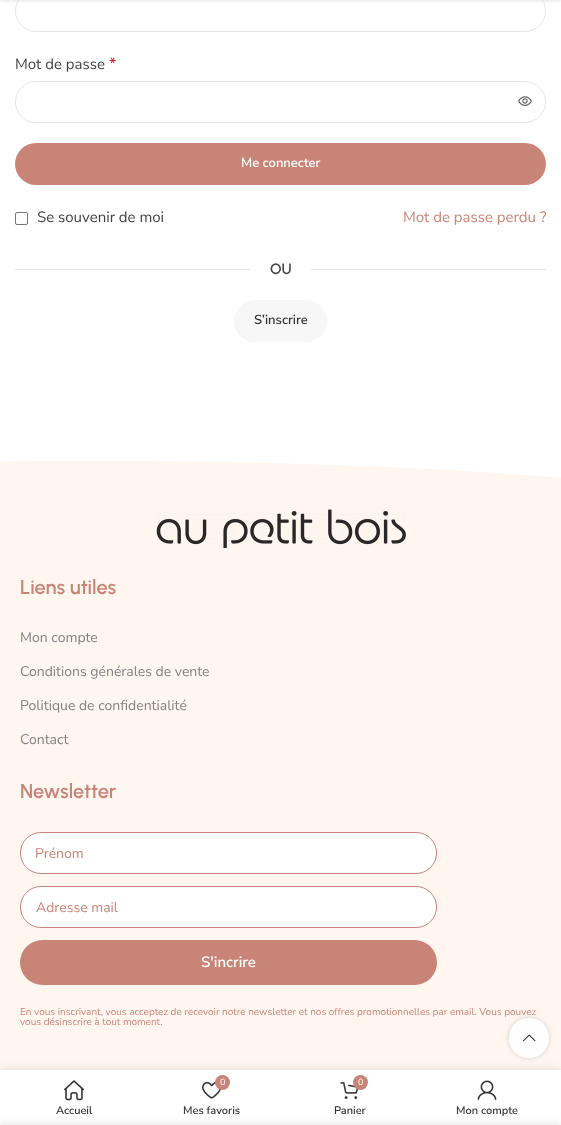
(async () => {
const canvas = document.querySelector("canvas")
canvas.width = 561
canvas.height = 1125
const c = canvas.getContext("2d")
c.miterLimit = 4
c.fontKerning = "normal"
function T(s,x,y){c.fillText(s,x,y)}
function R(x,y,w,h){c.fillRect(x,y,w,h)}
function Q(x,y,w,h,r){c.beginPath();c.roundRect(x,y,w,h,r);c.fill()}
async function I(src,x,y,w,h){const img=new Image();img.src=src;await img.decode();c.drawImage(img,x,y,w,h)}
let path
c.fillStyle="#fff"
R(0,0,561,1125)
c.beginPath()
c.roundRect(15.5,-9.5,530,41,20.5)
c.strokeStyle="#e6e6e6"
c.stroke()
c.fillStyle="#0000001a"
c.filter="blur(1.5px)"
c.beginPath()
c.rect(0,-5,561,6)
c.fill()
c.filter="none"
c.font="15px Nunito Sans"
c.fillStyle="#423f3f"
T("Mot de passe",15,69)
c.font="16px Nunito Sans"
c.fillStyle="#e01020"
T("*",109,69)
c.beginPath()
c.roundRect(15.5,81.5,530,41,20.5)
c.stroke()
await I("1.png",518,96,14,10)
c.fillStyle="#c98478"
Q(15,143,531,42,21)
c.font="600 13px Nunito Sans"
c.fillStyle="#fff"
T("Me connecter",241,167)
c.beginPath()
c.roundRect(15.5,212.5,12,12,1.5)
c.strokeStyle="#767676"
c.stroke()
c.font="15px Nunito Sans"
c.fillStyle="#423f3f"
T("Se souvenir de moi",37,222)
c.fillStyle="#c98478"
T("Mot de passe perdu ?",403,222)
c.fillStyle="#e4e4e4"
R(15,269,235,1)
c.font="600 15px Urbanist"
c.fillStyle="#423f3f"
T("OU",270,274)
c.fillStyle="#e4e4e4"
R(311,269,235,1)
c.fillStyle="#f7f7f7"
Q(234,300,93,42,21)
c.font="600 13px Nunito Sans"
c.fillStyle="#333"
T("S’inscrire",254,324)
c.fillStyle="#fff6f0"
R(0,461,561,609)
c.fillStyle="#fff"
path = new Path2D("M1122 432v99c-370-21-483-70-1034-70c-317 0-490 17-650 34v-63z")
c.fill(path)
await I("2.png",156,509,250,39)
c.font="600 20px Urbanist"
c.fillStyle="#c98478"
T("Liens utiles",20,594)
c.font="14px Nunito Sans"
c.fillStyle="#838383"
T("Mon compte",20,642)
T("Conditions générales de vente",20,676)
T("Politique de confidentialité",20,710)
T("Contact",20,744)
c.font="600 20px Urbanist"
c.fillStyle="#c98478"
T("Newsletter",20,798)
c.fillStyle="#fff"
c.beginPath()
c.roundRect(20.5,832.5,416,41,20.5)
c.fill()
c.strokeStyle="#c98478"
c.stroke()
c.font="14px Nunito Sans"
c.fillStyle="#c98478"
T("Prénom",35,858)
c.fillStyle="#fff"
c.beginPath()
c.roundRect(20.5,886.5,416,41,20.5)
c.fill()
c.stroke()
c.fillStyle="#c98478"
T("Adresse mail",36,912)
Q(20,940,417,45,22.5)
c.font="600 15px Nunito Sans"
c.fillStyle="#fff"
T("S'incrire",201,967)
c.font="10px Nunito Sans"
c.fillStyle="#c98478"
T("En vous inscrivant, vous acceptez de recevoir notre newsletter et nos offres promotionnelles par email. Vous pouvez",20,1015)
T("vous désinscrire à tout moment.",20,1025)
c.save()
path = new Path2D("M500 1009h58v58h-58zm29 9c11 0 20 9 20 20c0 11-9 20-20 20c-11 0-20-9-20-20c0-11 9-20 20-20z")
c.clip(path,"evenodd")
c.fillStyle="#0000002b"
c.filter="blur(2.5px)"
c.beginPath()
c.roundRect(509,1018,40,40,20)
c.fill()
c.filter="none"
c.restore()
c.fillStyle="#ffffffe6"
c.beginPath()
c.arc(529,1038,20,0,7)
c.fill()
await I("3.png",523,1034,13,8)
c.fillStyle="#0000001f"
c.filter="blur(4.5px)"
c.beginPath()
c.rect(0,1070,561,55)
c.fill()
c.filter="none"
c.fillStyle="#fff"
R(0,1070,561,55)
await I("4.png",64,1080,20,21)
c.font="600 11px Nunito Sans"
c.fillStyle="#333"
T("Accueil",56,1114)
await I("5.png",202,1081,20,18)
c.fillStyle="#c98478"
c.beginPath()
c.arc(222.5,1082.5,7.5,0,7)
c.fill()
c.font="9px Nunito Sans"
c.fillStyle="#fff"
T("0",220,1085)
c.font="600 11px Nunito Sans"
c.fillStyle="#333"
T("Mes favoris",183,1114)
await I("6.png",340,1082,19,17)
c.fillStyle="#c98478"
c.beginPath()
c.arc(360.5,1082.5,7.5,0,7)
c.fill()
c.font="9px Nunito Sans"
c.fillStyle="#fff"
T("0",358,1085)
c.font="600 11px Nunito Sans"
c.fillStyle="#333"
T("Panier",334,1114)
await I("7.png",477,1080,20,20)
T("Mon compte",456,1114)
c.fillStyle="#00000024"
c.filter="blur(4.5px)"
c.beginPath()
c.rect(0,1125,561,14)
c.fill()
c.filter="none"
})()
